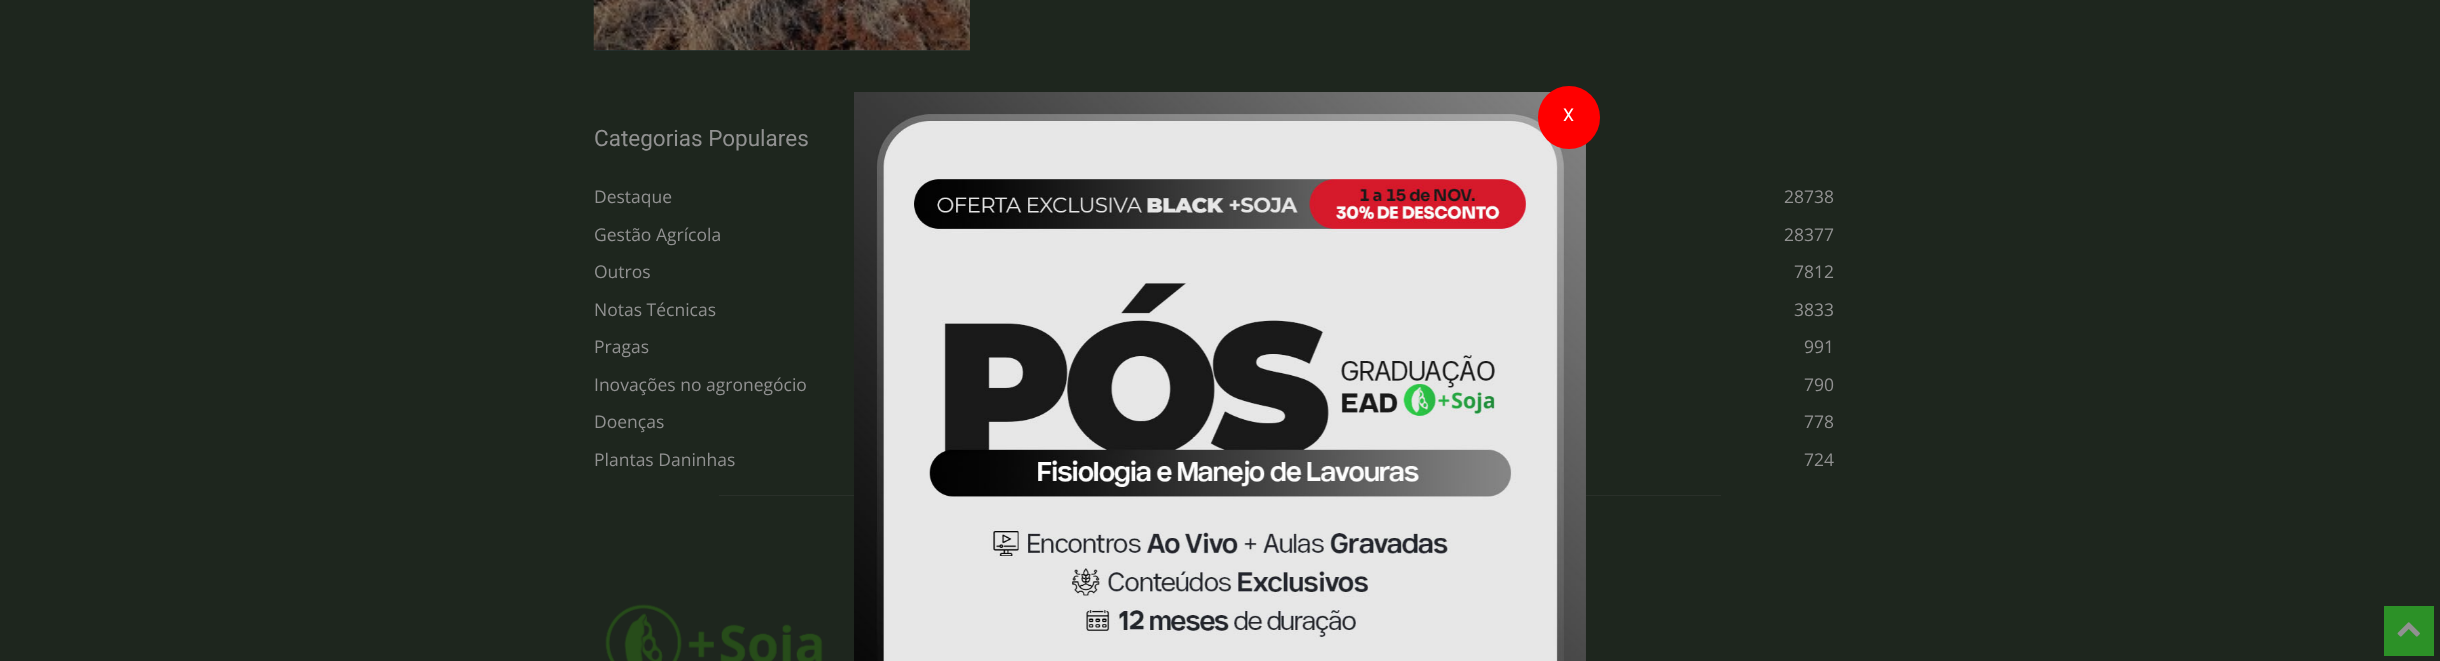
(async () => {
const canvas = document.querySelector("canvas")
canvas.width = 2440
canvas.height = 661
const c = canvas.getContext("2d")
c.miterLimit = 4
c.fontKerning = "normal"
function T(s,x,y){c.fillText(s,x,y)}
function R(x,y,w,h){c.fillRect(x,y,w,h)}
function Q(x,y,w,h,r){c.beginPath();c.roundRect(x,y,w,h,r);c.fill()}
async function I(src,x,y,w,h){const img=new Image();img.src=src;await img.decode();c.drawImage(img,x,y,w,h)}
c.fillStyle="#1e261e"
R(0,0,2440,661)
c.fillStyle="#2a302a"
R(719,495,1002,1)
await I("1.png",854,92,732,569)
c.fillStyle="#f00"
Q(1538,86,62,63,31)
c.font="17.5px Roboto"
c.fillStyle="#fff"
T("X",1563,121)
await I("2.png",593,0,377,51)
c.font="22.5px Roboto"
c.fillStyle="#919191"
T("Categorias Populares",594,146)
c.font="17.5px Open Sans"
T("Destaque",594,203)
T("28738",1784,203)
T("Gestão Agrícola",594,241)
T("28377",1784,241)
T("Outros",594,278)
T("7812",1794,278)
T("Notas Técnicas",594,316)
T("3833",1794,316)
T("Pragas",594,353)
T("991",1804,353)
T("Inovações no agronegócio",594,391)
T("790",1804,391)
T("Doenças",594,428)
T("778",1804,428)
T("Plantas Daninhas",594,466)
T("724",1804,466)
await I("3.png",605,604,218,57)
c.fillStyle="#2c9127"
R(2384,606,50,50)
await I("4.png",2397,622,23,15)
})()
